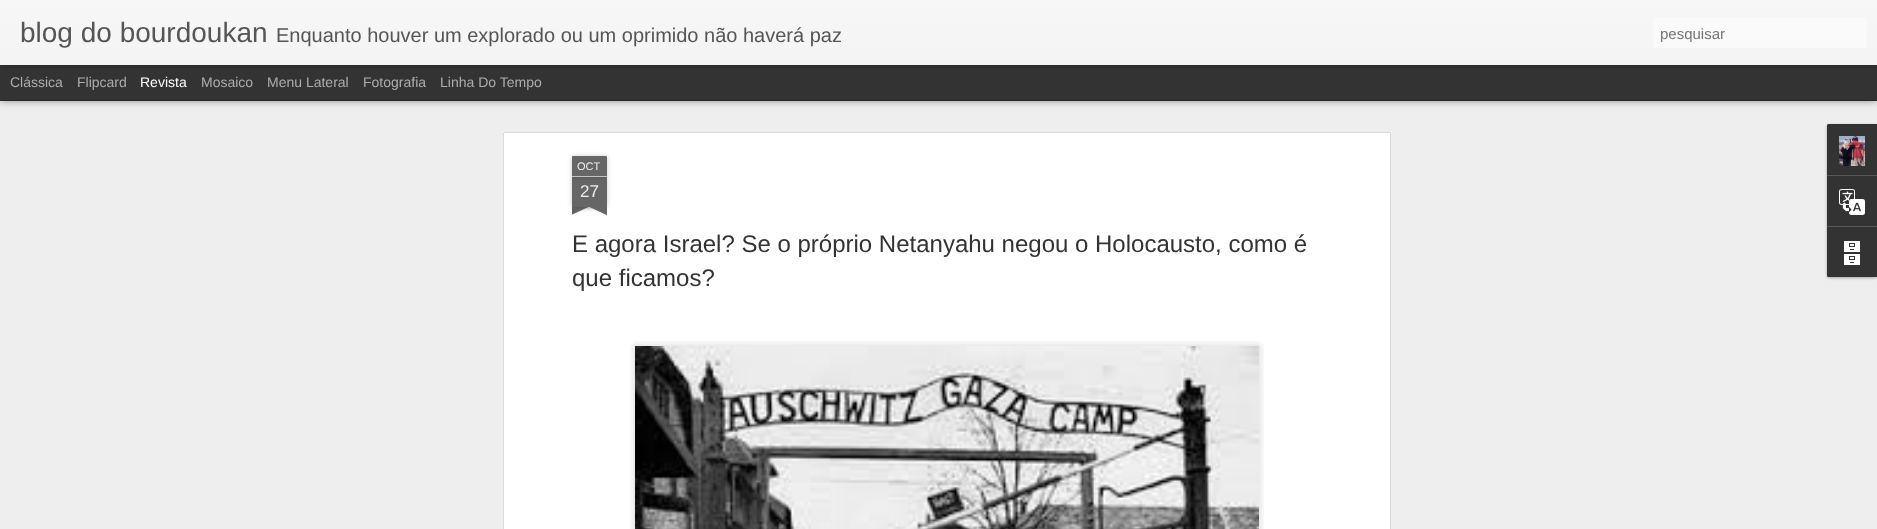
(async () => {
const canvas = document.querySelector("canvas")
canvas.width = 1877
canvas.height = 529
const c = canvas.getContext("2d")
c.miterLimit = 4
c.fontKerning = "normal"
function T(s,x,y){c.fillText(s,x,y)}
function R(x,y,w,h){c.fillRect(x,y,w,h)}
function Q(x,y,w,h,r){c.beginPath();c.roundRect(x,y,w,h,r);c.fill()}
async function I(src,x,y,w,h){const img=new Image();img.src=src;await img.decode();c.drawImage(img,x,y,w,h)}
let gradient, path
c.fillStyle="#333"
R(0,0,1877,529)
c.fillStyle="#eee"
R(0,101,1877,428)
c.fillStyle="#00000080"
c.filter="blur(4px)"
c.beginPath()
c.rect(0,65,1877,35)
c.fill()
c.filter="none"
c.fillStyle="#333"
R(0,65,1877,35)
c.fillStyle="#0000004d"
c.filter="blur(2.5px)"
c.beginPath()
c.rect(0,0,1877,65)
c.fill()
c.filter="none"
gradient = c.createLinearGradient(0,0,0,65)
gradient.addColorStop(0,"#f7f7f7")
gradient.addColorStop(1,"#f4f4f4")
c.fillStyle = gradient
R(0,0,1877,65)
c.font="28px Liberation Sans"
c.fillStyle="#555"
T("blog do bourdoukan",20,42)
c.font="20px Liberation Sans"
T("Enquanto houver um explorado ou um oprimido não haverá paz",276,42)
c.fillStyle="#fafafa"
Q(1653,18,214,30,3)
c.save()
c.beginPath()
c.rect(1660,25,200,17)
c.clip()
c.font="15px Liberation Sans"
c.fillStyle="#757575"
T("pesquisar",1660,39)
c.restore()
c.font="14px Liberation Sans"
c.fillStyle="#adadad"
T("Clássica",10,87)
T("Flipcard",77,87)
c.fillStyle="#fff"
T("Revista",140,87)
c.fillStyle="#adadad"
T("Mosaico",201,87)
T("Menu Lateral",267,87)
T("Fotografia",363,87)
T("Linha Do Tempo",440,87)
c.fillStyle="#fff"
R(502,131,890,398)
await I("1.png",502,131,890,398)
c.fillStyle="#00000033"
c.filter="blur(2.5px)"
c.beginPath()
c.rect(572,177,35,30)
c.fill()
c.filter="none"
c.fillStyle="#666"
R(572,177,35,30)
c.fillStyle="#00000033"
c.filter="blur(2.5px)"
c.beginPath()
c.roundRect(572,156,35,21,1)
c.fill()
c.filter="none"
c.fillStyle="#666"
c.beginPath()
c.roundRect(572,156,35,21,[1,1,0,0])
c.fill()
c.fillStyle="#c2c2c2"
R(572,176,35,1)
c.font="11px Liberation Sans"
c.fillStyle="#eee"
T("OCT",577,170)
c.font="17px Liberation Sans"
T("27",580,197)
c.save()
c.beginPath()
c.rect(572,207,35,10)
c.clip()
c.fillStyle="#00000033"
c.filter="blur(2.5px)"
c.beginPath()
c.rect(563,197,50,10)
c.fill()
c.filter="none"
c.restore()
c.save()
c.beginPath()
c.rect(572,207,35,10)
c.clip()
c.fillStyle="#666"
path = new Path2D("M563 208l45-21l4 9l-45 21z")
c.fill(path)
c.restore()
c.save()
c.beginPath()
c.rect(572,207,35,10)
c.clip()
c.fillStyle="#00000033"
c.filter="blur(2.5px)"
c.beginPath()
c.rect(566,197,50,10)
c.fill()
c.filter="none"
c.restore()
c.save()
c.beginPath()
c.rect(572,207,35,10)
c.clip()
c.fillStyle="#666"
path = new Path2D("M570 187l45 21l-4 9l-45-21z")
c.fill(path)
c.restore()
c.font="24px Liberation Sans"
c.fillStyle="#333"
T("E agora Israel? Se o próprio Netanyahu negou o Holocausto, como é",572,252)
T("que ficamos?",572,286)
await I("2.png",630,341,634,188)
await I("3.png",670,358,531,127)
c.fillStyle="#0000004d"
c.filter="blur(1.5px)"
c.beginPath()
c.roundRect(1827,125,50,153,2)
c.fill()
c.filter="none"
c.fillStyle="#333"
c.beginPath()
c.roundRect(1827,124,50,153,[2,0,0,2])
c.fill()
c.beginPath()
c.roundRect(1827,124,50,51,[2,0,0,0])
c.fill()
await I("4.png",1839,136,26,30)
c.fillStyle="#585858"
R(1827,175,50,1)
await I("5.png",1839,189,26,26)
c.fillStyle="#333"
c.beginPath()
c.roundRect(1827,226,50,51,[0,0,0,2])
c.fill()
c.fillStyle="#585858"
R(1827,226,50,1)
await I("6.png",1844,241,16,24)
})()
